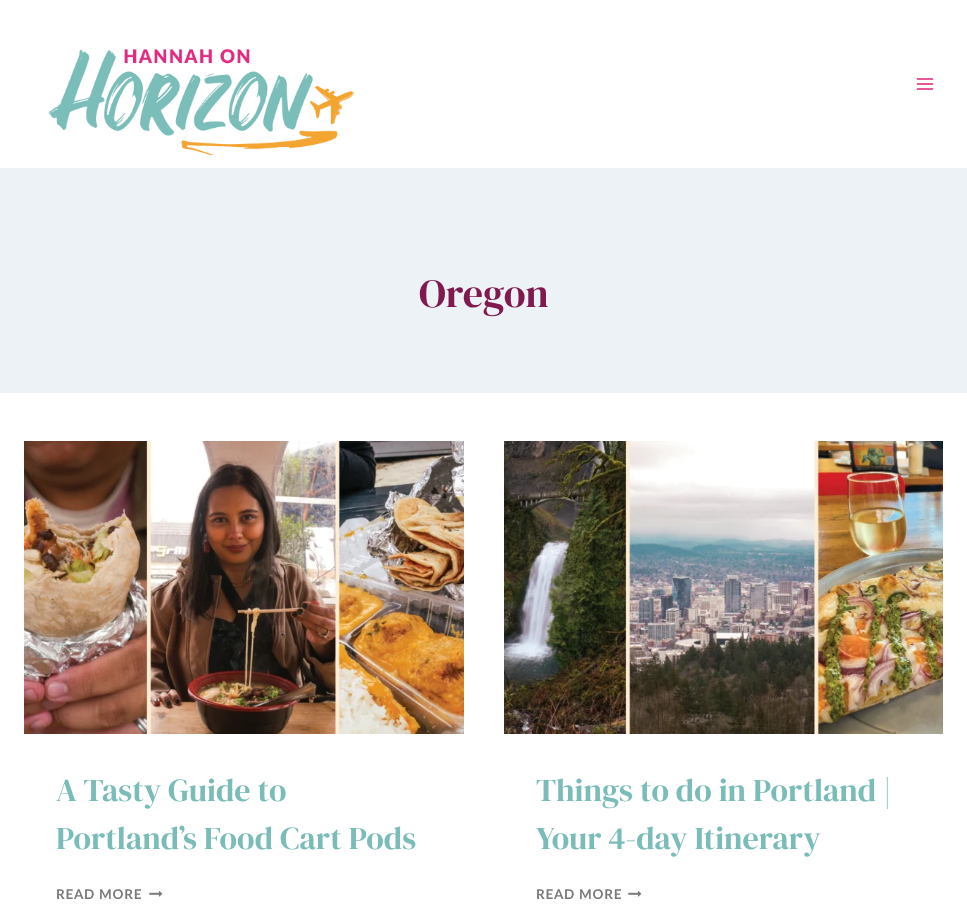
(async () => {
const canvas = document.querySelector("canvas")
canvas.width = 967
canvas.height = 909
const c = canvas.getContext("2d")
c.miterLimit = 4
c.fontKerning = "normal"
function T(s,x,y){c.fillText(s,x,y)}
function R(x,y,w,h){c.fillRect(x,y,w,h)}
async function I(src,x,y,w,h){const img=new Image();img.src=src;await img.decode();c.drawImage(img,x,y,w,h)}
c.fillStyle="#fff"
R(0,0,967,909)
await I("1.png",48,49,307,107)
await I("2.png",916,78,18,12)
c.fillStyle="#edf2f7"
R(0,168,967,225)
c.font="40px DM Serif Display"
c.fillStyle="#7f194e"
T("Oregon",419,307)
await I("3.png",24,441,440,293)
c.font="32px DM Serif Display"
c.fillStyle="#7abcb8"
T("A Tasty Guide to",56,801)
T("Portland’s Food Cart Pods",56,849)
c.letterSpacing="0.75px"
c.font="bold 13.5px Lato"
c.fillStyle="#7a7a7a"
T("READ MORE",56,899)
await I("4.png",149,891,14,6)
await I("5.png",504,441,439,293)
c.letterSpacing="0px"
c.font="32px DM Serif Display"
c.fillStyle="#7abcb8"
T("Things to do in Portland |",536,801)
T("Your 4-day Itinerary",536,849)
c.letterSpacing="0.75px"
c.font="bold 13.5px Lato"
c.fillStyle="#7a7a7a"
T("READ MORE",536,899)
await I("4.png",628,891,14,6)
})()
